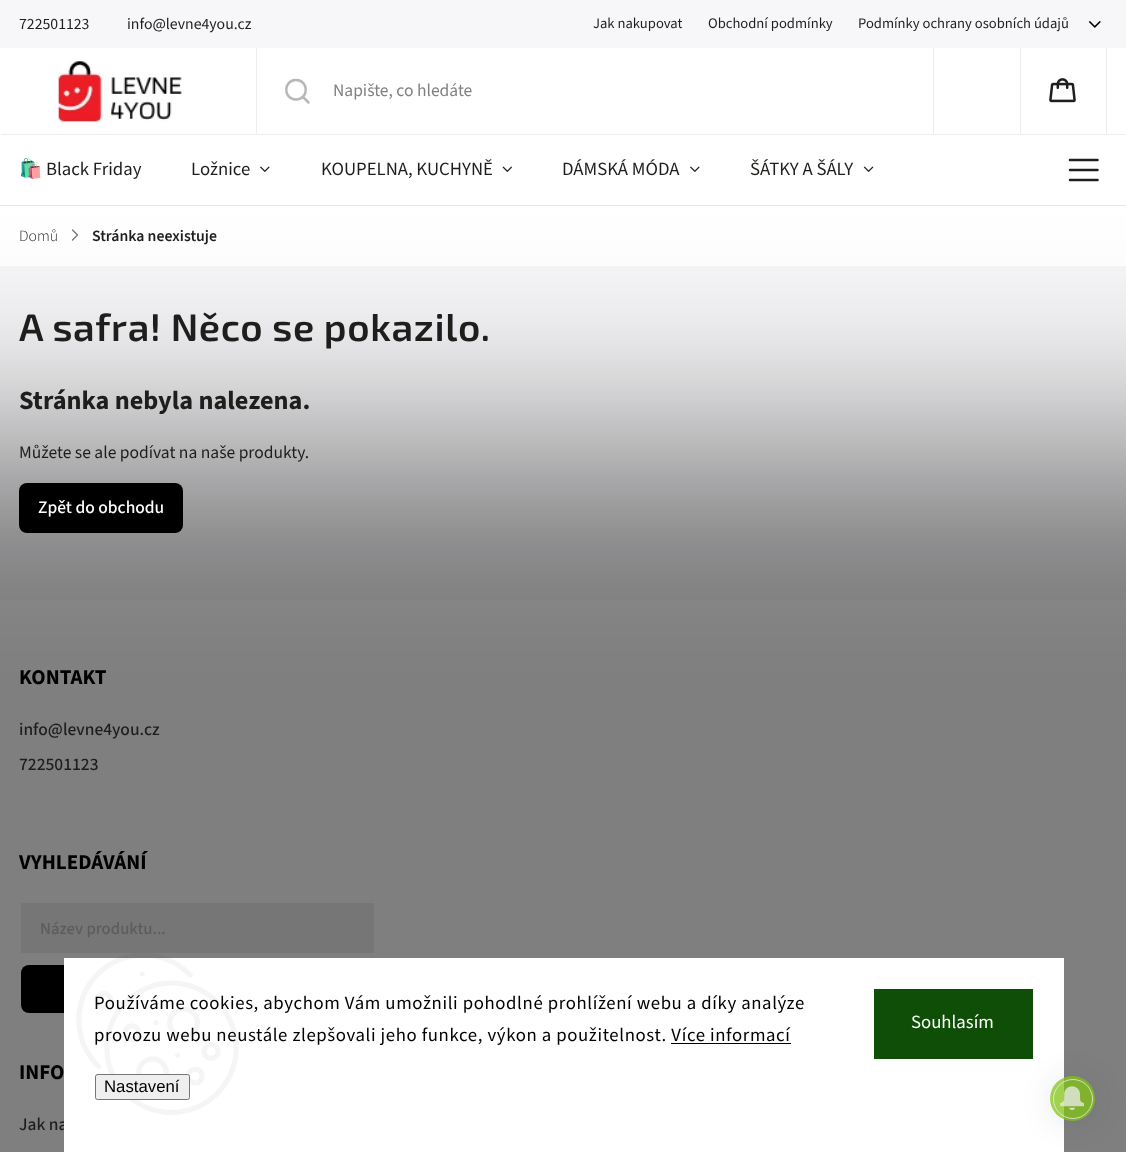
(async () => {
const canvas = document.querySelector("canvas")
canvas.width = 1126
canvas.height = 1152
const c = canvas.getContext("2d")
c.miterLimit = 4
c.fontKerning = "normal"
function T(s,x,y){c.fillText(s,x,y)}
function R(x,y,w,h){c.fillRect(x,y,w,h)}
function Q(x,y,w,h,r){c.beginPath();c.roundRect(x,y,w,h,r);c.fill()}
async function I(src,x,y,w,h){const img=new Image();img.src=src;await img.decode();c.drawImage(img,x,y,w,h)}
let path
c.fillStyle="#f7f7f9"
R(0,0,1126,1152)
c.font="15.75px 'Source Sans 3'"
c.fillStyle="#1e1e1c"
T("722501123",19,29)
T("info@levne4you.cz",127,29)
c.font="14.6px 'Source Sans 3'"
T("Jak nakupovat",593,28)
T("Obchodní podmínky",708,28)
T("Podmínky ochrany osobních údajů",858,28)
await I("1.png",1088,21,13,7)
c.fillStyle="#fff"
R(0,206,1126,60)
path = new Path2D("M72.5 240l5-5l-5-5")
c.strokeStyle="#747474"
c.lineWidth=1.2
c.lineCap="round"
c.lineJoin="round"
c.stroke(path)
c.fillStyle="#000"
Q(19,483,164,50,8)
c.fillStyle="#fff"
R(0,600,1126,552)
c.fillStyle="#ececec"
R(21,903,353,50)
c.fillStyle="#000"
Q(21,965,157,48,8)
c.fillStyle="#00000080"
c.filter="blur(100px)"
c.beginPath()
c.rect(-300,445,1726,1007)
c.fill()
c.filter="none"
c.fillStyle="#fff"
R(0,48,1126,157)
c.fillStyle="#e4e4e4"
R(0,205,1126,1)
await I("2.png",57,61,125,62)
c.fillStyle="#ededed"
R(256,48,1,86)
path = new Path2D("M296 99.5c13 0 13-19.5 0-19.5c-13 0-13 19.5 0 19.5zm7-2.5l5.5 5.5")
c.strokeStyle="#b7b7b6"
c.lineWidth=2.5
c.stroke(path)
c.font="17.5px 'Source Sans 3'"
c.fillStyle="#818180"
T("Napište, co hledáte",333,96)
c.fillStyle="#ededed"
R(933,48,1,86)
R(1106,48,1,86)
R(1020,48,1,86)
await I("3.png",1049,78,27,25)
R(1,134,1125,1)
c.save()
c.beginPath()
c.rect(19,135,1089,70)
c.clip()
c.font="18.75px Noto Color Emoji"
c.fillStyle="#1e1e1c"
T("🛍️",19,175)
c.restore()
c.font="18.75px 'Source Sans 3'"
c.fillStyle="#1e1e1c"
T("Black Friday",46,175)
T("Ložnice",191,175)
await I("4.png",260,166,10,6)
T("KOUPELNA, KUCHYNĚ",321,175)
await I("5.png",502,166,11,6)
T("DÁMSKÁ MÓDA",562,175)
await I("4.png",690,166,10,6)
T("ŠÁTKY A ŠÁLY",750,175)
await I("6.png",863,166,11,6)
path = new Path2D("M1070 170h27.5m-27.5-10h27.5m-27.5 20h27.5")
c.strokeStyle="#1e1e1c"
c.stroke(path)
c.font="300 15.75px 'Source Sans 3'"
T("Domů",19,241)
c.font="600 15.75px 'Source Sans 3'"
T("Stránka neexistuje",92,241)
c.letterSpacing="0.62px"
c.font="600 38.5px 'Exo 2'"
T("A safra! Něco se pokazilo.",19,341)
c.letterSpacing="0px"
c.font="bold 26.25px 'Source Sans 3'"
T("Stránka nebyla nalezena.",19,409)
c.font="17.5px 'Source Sans 3'"
T("Můžete se ale podívat na naše produkty.",19,458)
c.font="500 17.5px 'Source Sans 3'"
c.fillStyle="#fff"
T("Zpět do obchodu",38,513)
c.font="bold 21px 'Source Sans 3'"
c.fillStyle="#000"
T("KONTAKT",19,684)
c.font="500 17.5px 'Source Sans 3'"
c.fillStyle="#1e1e1c"
T("info@levne4you.cz",19,735)
T("722501123",19,770)
c.font="bold 21px 'Source Sans 3'"
c.fillStyle="#000"
T("VYHLEDÁVÁNÍ",19,869)
c.font="500 16.75px 'Source Sans 3'"
c.fillStyle="#5c5c5a"
T("Název produktu...",40,934)
c.font="bold 21px 'Source Sans 3'"
c.fillStyle="#000"
T("INFO",19,1079)
c.font="500 17.5px 'Source Sans 3'"
c.fillStyle="#1e1e1c"
T("Jak na",19,1130)
c.fillStyle="#fff"
R(64,958,1000,194)
await I("7.png",76,953,163,162)
c.letterSpacing="0.62px"
c.font="18.75px 'Source Sans 3'"
c.fillStyle="#000"
T("Používáme cookies, abychom Vám umožnili pohodlné prohlížení webu a díky analýze",94,1009)
T("provozu webu neustále zlepšovali jeho funkce, výkon a použitelnost. Více informací",94,1041)
R(671,1043,120,1)
c.fillStyle="#efefef"
c.beginPath()
c.roundRect(95.5,1074.5,94,25,2)
c.fill()
c.strokeStyle="#767676"
c.lineWidth=1
c.lineJoin="miter"
c.stroke()
c.letterSpacing="0px"
c.font="16.75px Liberation Sans"
c.fillStyle="#000"
T("Nastavení",104,1092)
c.fillStyle="#0f4e06"
R(874,989,159,70)
c.font="18.75px 'Source Sans 3'"
c.fillStyle="#fff"
T("Souhlasím",911,1028)
c.save()
path = new Path2D("M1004 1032h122v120h-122zm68.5 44c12.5 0 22.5 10 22.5 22.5c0 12.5-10 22.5-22.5 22.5c-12.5 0-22.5-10-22.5-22.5c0-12.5 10-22.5 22.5-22.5z")
c.clip(path,"evenodd")
c.fillStyle="#051b2c1c"
c.filter="blur(15px)"
c.beginPath()
c.roundRect(1050,1078,45,45,22.5)
c.fill()
c.filter="none"
c.restore()
c.fillStyle="#82c312bf"
c.beginPath()
c.arc(1072.5,1098.5,22.5,0,7)
c.fill()
c.beginPath()
c.arc(1073,1099,19.5,0,7)
c.strokeStyle="#ecececbf"
c.stroke()
await I("8.png",1060,1086,24,25)
})()
